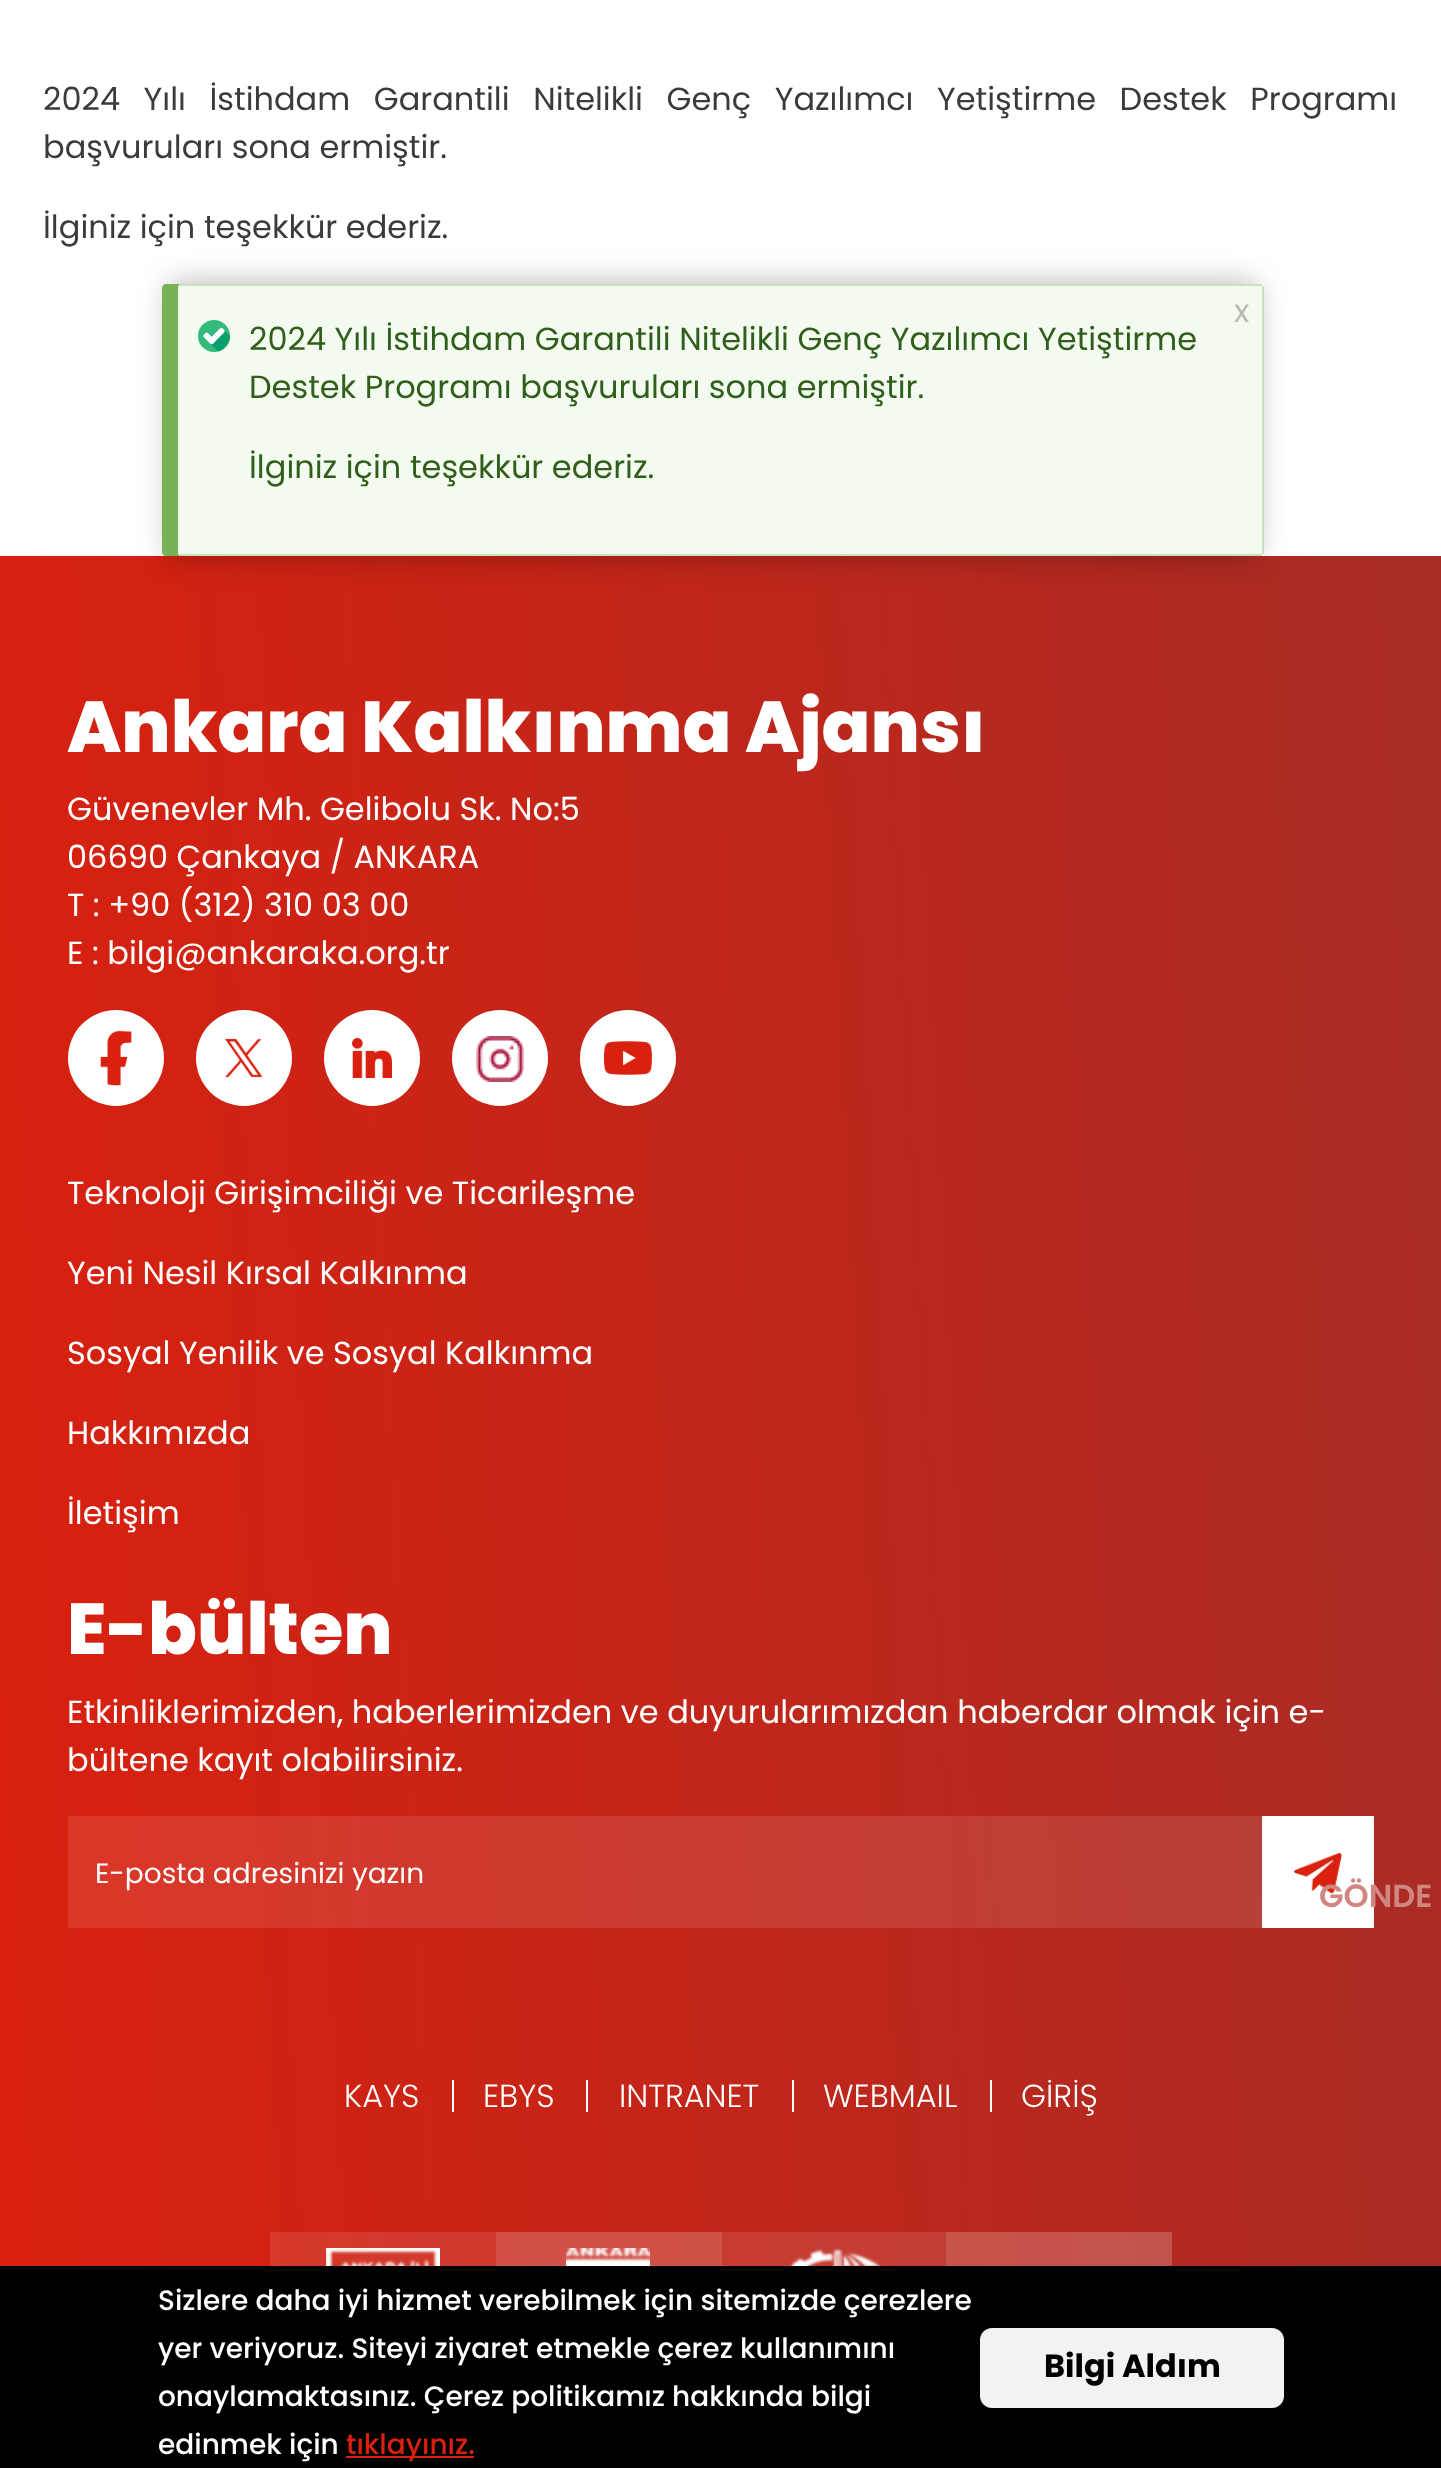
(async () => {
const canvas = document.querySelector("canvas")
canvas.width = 1441
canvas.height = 2468
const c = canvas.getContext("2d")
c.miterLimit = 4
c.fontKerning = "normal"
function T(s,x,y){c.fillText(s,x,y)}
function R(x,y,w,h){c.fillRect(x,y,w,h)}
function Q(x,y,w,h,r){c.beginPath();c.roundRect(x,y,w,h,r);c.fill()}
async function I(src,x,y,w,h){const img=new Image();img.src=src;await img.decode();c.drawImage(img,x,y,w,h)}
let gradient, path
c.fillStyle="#fff"
R(0,0,1441,2468)
c.wordSpacing="15px"
c.font="32px Poppins"
c.fillStyle="#3b3b3b"
T("2024 Yılı İstihdam Garantili Nitelikli Genç Yazılımcı Yetiştirme Destek Programı",43,110)
c.wordSpacing="0px"
T("başvuruları sona ermiştir.",43,158)
T("İlginiz için teşekkür ederiz.",43,238)
gradient = c.createLinearGradient(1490,1472,-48,1552)
gradient.addColorStop(0,"#a82c26")
gradient.addColorStop(1,"#da200e")
c.fillStyle = gradient
R(0,556,1441,1710)
c.fillStyle="#0000004d"
c.filter="blur(15px)"
c.beginPath()
c.roundRect(170,284,1086,272,4)
c.fill()
c.filter="none"
c.fillStyle="#77b259"
path = new Path2D("M166 284c-2 0-4 2-4 4v264c0 2 2 4 4 4h16c-2 0-4-2-4-4v-264c0-2 2-4 4-4z")
c.fill(path)
c.fillStyle="#f3faef"
Q(178,284,1086,272,4)
await I("1.png",198,320,32,32)
c.fillStyle="#c9e1bd"
R(180,284,1082,2)
R(1262,286,2,268)
R(180,554,1082,2)
c.fillStyle="#b6bcb3"
T("x",1234,322)
c.fillStyle="#325e1c"
T("2024 Yılı İstihdam Garantili Nitelikli Genç Yazılımcı Yetiştirme",249,350)
T("Destek Programı başvuruları sona ermiştir.",249,398)
T("İlginiz için teşekkür ederiz.",249,478)
gradient = c.createLinearGradient(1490,1472,-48,1552)
gradient.addColorStop(0,"#b95651")
gradient.addColorStop(1,"#e14d3e")
c.fillStyle = gradient
R(946,2232,226,34)
gradient = c.createLinearGradient(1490,1472,-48,1552)
gradient.addColorStop(0,"#b1413c")
gradient.addColorStop(1,"#de3626")
c.fillStyle = gradient
R(722,2232,224,34)
gradient = c.createLinearGradient(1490,1472,-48,1552)
gradient.addColorStop(0,"#b95651")
gradient.addColorStop(1,"#e14d3e")
c.fillStyle = gradient
R(496,2232,226,34)
gradient = c.createLinearGradient(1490,1472,-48,1552)
gradient.addColorStop(0,"#b1413c")
gradient.addColorStop(1,"#de3626")
c.fillStyle = gradient
R(270,2232,226,34)
R(68,1816,1194,112)
c.font="800 72px Poppins"
c.fillStyle="#fff"
T("Ankara Kalkınma Ajansı",67,752)
c.font="32px Poppins"
T("Güvenevler Mh. Gelibolu Sk. No:5",67,820)
T("06690 Çankaya / ANKARA",67,868)
T("T : +90 (312) 310 03 00",67,916)
T("E : bilgi@ankaraka.org.tr",67,964)
c.beginPath()
c.arc(116,1058,48,0,7)
c.fill()
await I("2.png",100,1030,32,56)
c.beginPath()
c.arc(244,1058,48,0,7)
c.fill()
await I("3.png",225,1038,38,40)
c.beginPath()
c.arc(372,1058,48,0,7)
c.fill()
await I("4.png",352,1038,40,40)
c.beginPath()
c.arc(500,1058,48,0,7)
c.fill()
await I("5.png",476,1036,48,46)
c.beginPath()
c.arc(628,1058,48,0,7)
c.fill()
await I("6.png",604,1041,48,34)
T("Teknoloji Girişimciliği ve Ticarileşme",67,1204)
T("Yeni Nesil Kırsal Kalkınma",67,1284)
T("Sosyal Yenilik ve Sosyal Kalkınma",67,1364)
T("Hakkımızda",67,1444)
T("İletişim",67,1524)
c.font="800 72px Poppins"
T("E-bülten",67,1654)
c.font="32px Poppins"
T("Etkinliklerimizden, haberlerimizden ve duyurularımızdan haberdar olmak için e-",67,1723)
T("bültene kayıt olabilirsiniz.",67,1771)
c.font="28px Poppins"
T("E-posta adresinizi yazın",95,1883)
R(1262,1816,112,112)
await I("7.png",1294,1853,48,41)
c.font="600 32px Poppins"
c.fillStyle="#d18682"
T("GÖNDE",1319,1907)
c.font="300 32px Poppins"
c.fillStyle="#fff"
T("KAYS",344,2107)
R(452,2080,2,32)
T("EBYS",483,2107)
R(586,2080,2,32)
T("INTRANET",619,2107)
R(792,2080,2,32)
T("WEBMAIL",823,2107)
R(990,2080,2,32)
T("GİRİŞ",1021,2107)
await I("8.png",326,2248,114,18)
await I("9.png",566,2248,84,18)
await I("10.png",789,2248,92,18)
c.fillStyle="#000"
R(0,2266,1441,202)
c.font="500 28px Poppins"
c.fillStyle="#fff"
T("Sizlere daha iyi hizmet verebilmek için sitemizde çerezlere",158,2310)
T("yer veriyoruz. Siteyi ziyaret etmekle çerez kullanımını",158,2358)
T("onaylamaktasınız. Çerez politikamız hakkında bilgi",158,2406)
T("edinmek için",158,2454)
c.fillStyle="#da200e"
R(346,2456,128,2)
T("tıklayınız.",346,2454)
c.fillStyle="#f2f2f2"
Q(980,2328,304,80,12)
c.font="bold 32px Poppins"
c.fillStyle="#000"
T("Bilgi Aldım",1044,2377)
})()
